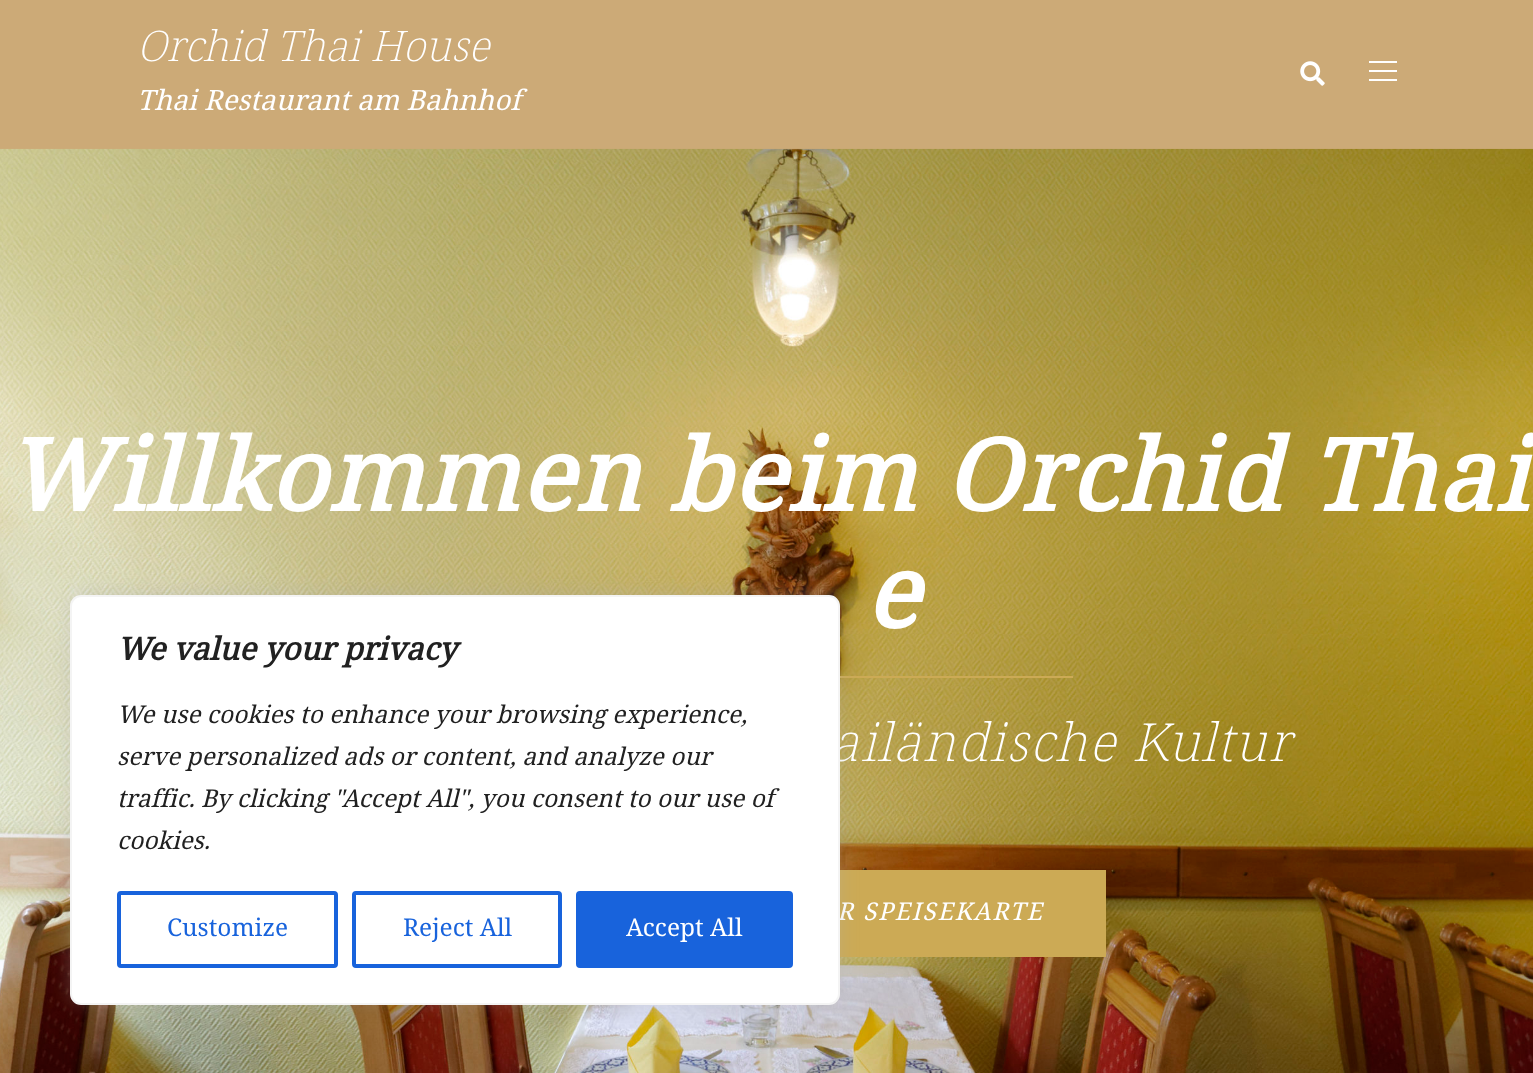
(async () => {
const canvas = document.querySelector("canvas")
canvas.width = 1533
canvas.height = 1073
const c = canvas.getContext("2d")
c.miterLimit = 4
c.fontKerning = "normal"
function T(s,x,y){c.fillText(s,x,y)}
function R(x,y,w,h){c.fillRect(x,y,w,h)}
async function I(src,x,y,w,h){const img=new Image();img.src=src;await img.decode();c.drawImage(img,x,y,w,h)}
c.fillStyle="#ca7"
R(0,0,1533,1073)
c.font="italic 200 42px Noto Serif Thai"
c.fillStyle="#fff"
T("Orchid Thai House",137,61)
c.font="italic 28px Noto Serif Thai"
T("Thai Restaurant am Bahnhof",137,110)
await I("1.png",1300,61,25,25)
R(1369,61,28,2)
R(1369,70,28,2)
R(1369,79,28,2)
await I("2.png",0,148,1533,925)
c.letterSpacing="1.75px"
c.font="italic bold 99.75px Noto Serif Thai"
T("Willkommen beim Orchid Thai",5,511)
T("e",865,628)
c.fillStyle="#ca5"
R(840,676,233,2)
c.font="italic 200 52.5px Noto Serif Thai"
c.fillStyle="#fff"
T("ailändische Kultur",831,761)
c.fillStyle="#ca5"
R(840,870,266,87)
c.font="italic 24.5px Noto Serif Thai"
c.fillStyle="#fff"
T("R SPEISEKARTE",837,920)
c.fillStyle="#acabab4d"
c.filter="blur(9px)"
c.beginPath()
c.roundRect(70,593,770,410,11)
c.fill()
c.filter="none"
c.fillStyle="#fff"
c.beginPath()
c.roundRect(71,596,768,408,10)
c.fill()
c.strokeStyle="#f4f4f4"
c.lineWidth=2
c.stroke()
c.letterSpacing="0px"
c.font="italic bold 31.5px Noto Serif Thai"
c.fillStyle="#212121"
T("We value your privacy",117,660)
c.font="italic 24.5px Noto Serif Thai"
T("We use cookies to enhance your browsing experience,",117,723)
T("serve personalized ads or content, and analyze our",117,765)
T("traffic. By clicking \"Accept All\", you consent to our use of",117,807)
T("cookies.",117,849)
c.beginPath()
c.roundRect(119,893,217,73,2)
c.strokeStyle="#1863dc"
c.lineWidth=4
c.stroke()
c.font="24.5px Noto Serif Thai"
c.fillStyle="#1863dc"
T("Customize",167,936)
c.beginPath()
c.roundRect(354,893,206,73,2)
c.stroke()
T("Reject All",403,936)
c.beginPath()
c.roundRect(578,893,213,73,2)
c.fill()
c.stroke()
c.fillStyle="#fff"
T("Accept All",626,936)
})()
